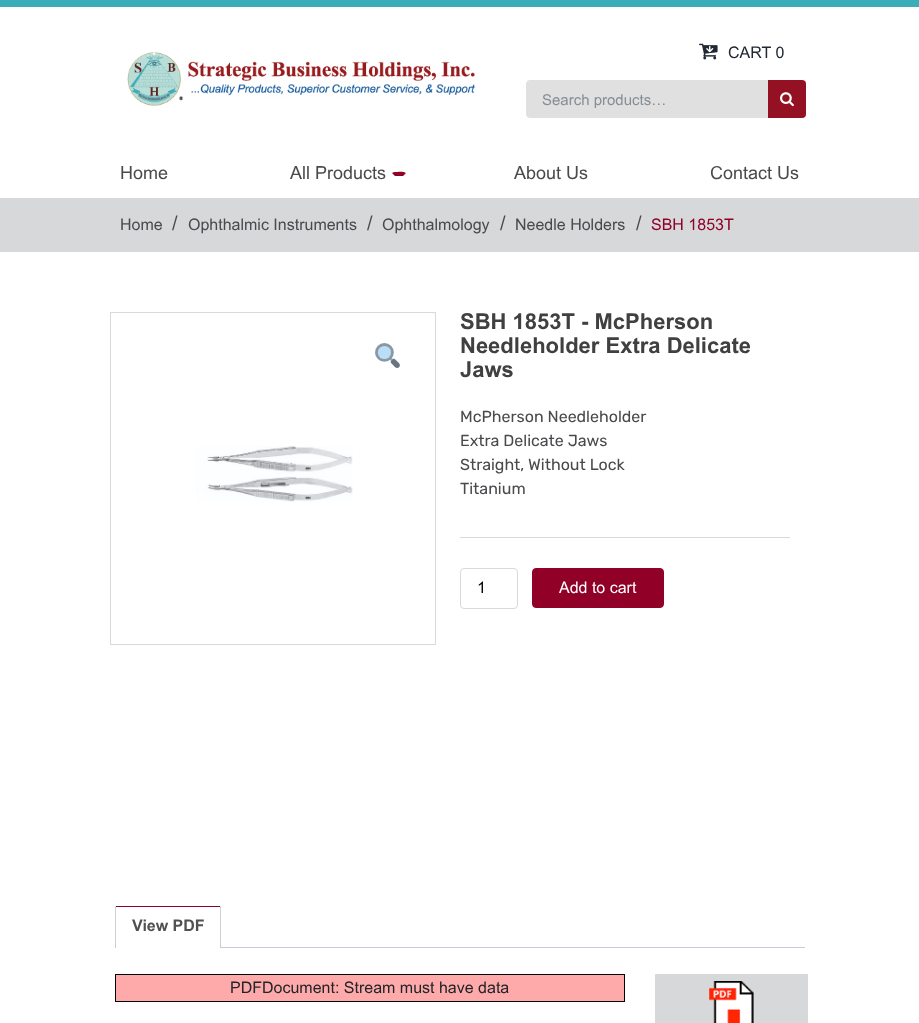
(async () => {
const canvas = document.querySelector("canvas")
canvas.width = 919
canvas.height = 1023
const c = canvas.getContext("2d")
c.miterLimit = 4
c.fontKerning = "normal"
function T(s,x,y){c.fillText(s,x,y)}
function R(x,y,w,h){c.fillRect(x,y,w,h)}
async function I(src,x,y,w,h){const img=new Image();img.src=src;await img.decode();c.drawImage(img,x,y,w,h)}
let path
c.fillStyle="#fff"
R(0,0,919,1023)
c.fillStyle="#3badb8"
R(0,0,919,7)
await I("1.png",127,52,349,54)
await I("2.png",699,43,19,17)
c.font="16px Arial"
c.fillStyle="#212733"
T("CART 0",728,58)
c.fillStyle="#e0e0e0"
c.beginPath()
c.roundRect(526.5,80.5,242,37,[3.5,0,0,3.5])
c.fill()
c.strokeStyle="#e0e0e0"
c.stroke()
c.font="15px Arial"
c.fillStyle="#868e96"
T("Search products…",542,105)
c.fillStyle="#941123"
c.beginPath()
c.roundRect(768,80,38,38,[0,4,4,0])
c.fill()
await I("3.png",780,92,14,15)
c.font="18px Arial"
c.fillStyle="#494a4d"
T("Home",120,179)
T("All Products",290,179)
c.fillStyle="#900027"
path = new Path2D("M395 172c2.5 0 8.5-1 11 1l-3 3h-8l-3-3c1-.5 2-1 3-1z")
c.fill(path)
c.fillStyle="#494a4d"
T("About Us",514,179)
T("Contact Us",710,179)
c.fillStyle="#d7d8da"
R(0,198,919,54)
c.font="16px Arial"
c.fillStyle="#494a4d"
T("Home",120,230)
c.font="20px Arial"
T("/",172,230)
c.font="16px Arial"
T("Ophthalmic Instruments",188,230)
c.font="20px Arial"
T("/",367,230)
c.font="16px Arial"
T("Ophthalmology",382,230)
c.font="20px Arial"
T("/",500,230)
c.font="16px Arial"
T("Needle Holders",515,230)
c.font="20px Arial"
T("/",636,230)
c.font="16px Arial"
c.fillStyle="#900027"
T("SBH 1853T",651,230)
c.strokeStyle="#d9d9d9"
c.strokeRect(110.5,312.5,325,332)
await I("4.png",375,343,25,25)
await I("5.png",196,446,157,56)
c.fillStyle="#d9d9d9"
R(460,537,330,1)
c.font="bold 22px Arial"
c.fillStyle="#404040"
T("SBH 1853T - McPherson",460,329)
T("Needleholder Extra Delicate",460,353)
T("Jaws",460,377)
c.font="16px Rubik"
c.fillStyle="#494a4d"
T("McPherson Needleholder",460,422)
T("Extra Delicate Jaws",460,446)
T("Straight, Without Lock",460,470)
T("Titanium",460,494)
c.beginPath()
c.roundRect(460.5,568.5,57,40,3.5)
c.stroke()
c.font="16px Arial"
c.fillStyle="#000"
T("1",477,593)
c.fillStyle="#900027"
c.beginPath()
c.roundRect(532.5,568.5,131,39,3.5)
c.fill()
c.strokeStyle="#900027"
c.stroke()
c.fillStyle="#fff"
T("Add to cart",559,593)
c.fillStyle="#900027"
R(115,906,106,1)
c.fillStyle="#d3ced2"
R(220,906,1,42)
c.fillStyle="#fff"
R(220,947,1,1)
c.fillStyle="#d3ced2"
R(115,906,1,42)
c.font="bold 16px Arial"
c.fillStyle="#515151"
T("View PDF",132,931)
c.fillStyle="#cfc8d8"
R(115,943,1,5)
R(220,947,5,1)
R(220,943,1,5)
R(225,947,580,1)
c.strokeStyle="#000"
c.strokeRect(115.5,974.5,509,27)
c.fillStyle="#faa"
R(116,975,508,26)
c.font="16px Arial"
c.fillStyle="#212529"
T("PDFDocument: Stream must have data",230,993)
c.fillStyle="#d7d8da"
R(655,974,153,49)
await I("6.png",709,981,45,42)
})()
